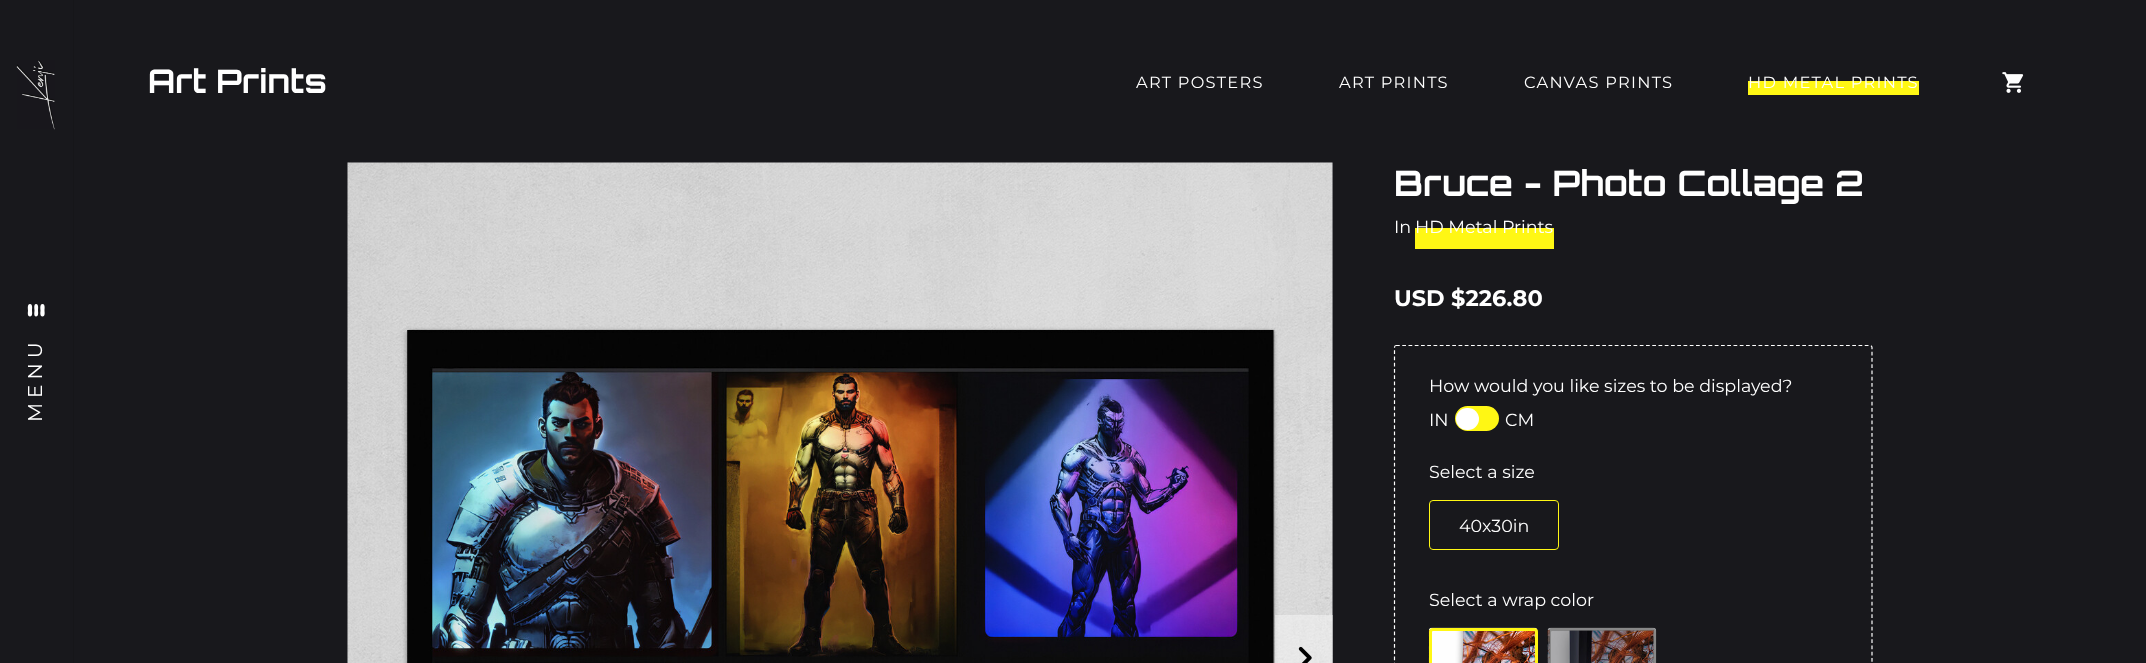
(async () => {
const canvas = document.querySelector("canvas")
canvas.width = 2146
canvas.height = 663
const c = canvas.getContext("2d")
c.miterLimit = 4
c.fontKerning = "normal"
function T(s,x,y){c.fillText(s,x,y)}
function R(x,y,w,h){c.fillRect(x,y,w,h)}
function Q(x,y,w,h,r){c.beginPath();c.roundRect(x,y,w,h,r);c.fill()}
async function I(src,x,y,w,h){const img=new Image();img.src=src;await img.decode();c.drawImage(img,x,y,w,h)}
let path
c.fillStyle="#18181c"
R(0,0,2146,663)
c.fillStyle="#161619"
path = new Path2D("M-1 0v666h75v-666h-2v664h-72v-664z")
c.fill(path)
c.fillStyle="#18181c"
R(72,0,1,663)
await I("1.png",16,60,39,70)
c.fillStyle="#fff"
path = new Path2D("M42.5 316.5c-3 0-2-4.5-2-6c0-1.5-1-6.5 2-6.5c3 0 2 5 2 6.5c0 1.5 1 6-2 6zm-6.5 0c-2.5 0-1.5-4.5-1.5-6c0-1.5-1-6.5 1.5-6.5c3 0 2 5 2 6.5c0 1.5 1 6-2 6zm-6 0c-3 0-2-4.5-2-6c0-1.5-1-6.5 2-6.5c3 0 2 5 2 6.5c0 1.5 1 6-2 6z")
c.fill(path)
c.letterSpacing="5px"
c.font="20px Montserrat"
c.save()
c.translate(42,422)
c.rotate(-90 * Math.PI / 180)
c.fillText("MENU",0,0)
c.restore()
c.letterSpacing="0px"
c.font="bold 32.5px Orbitron"
T("Art Prints",148,93)
c.letterSpacing="1.25px"
c.font="16.25px Montserrat"
T("ART POSTERS",1136,88)
T("ART PRINTS",1339,88)
T("CANVAS PRINTS",1524,88)
c.fillStyle="#fff714"
R(1748,81,171,14)
c.fillStyle="#fff"
T("HD METAL PRINTS",1748,88)
await I("2.png",2002,72,22,21)
c.fillStyle="#24242a"
R(1332,163,1,500)
await I("3.png",347,162,986,501)
c.fillStyle="#ffffff66"
R(1275,615,58,48)
await I("4.png",1298,646,14,17)
c.letterSpacing="0px"
c.font="bold 35px Orbitron"
c.fillStyle="#fff"
T("Bruce - Photo Collage 2",1394,196)
c.font="17.5px Montserrat"
T("In",1394,233)
c.fillStyle="#fff714"
R(1415,228,139,21)
c.fillStyle="#fff"
T("HD Metal Prints",1415,233)
c.font="bold 22.5px Montserrat"
T("USD $226.80",1394,306)
path = new Path2D("M1396 345.5h474c1 0 2 1 2 2v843.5c0 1.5-1 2-2 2h-474c-1 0-1.5-.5-1.5-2v-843.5c0-1 .5-2 1.5-2z")
c.strokeStyle="#fff"
c.lineWidth=1.2
c.setLineDash([3.75,2.5])
c.stroke(path)
c.font="17.5px Montserrat"
T("How would you like sizes to be displayed?",1429,392)
T("IN",1429,426)
c.fillStyle="#fff714"
Q(1455,406,44,25,12.5)
c.fillStyle="#fff"
Q(1456,408,23,22,11)
T("CM",1505,426)
T("Select a size",1429,478)
c.beginPath()
c.roundRect(1429.5,500.5,129,49,3.5)
c.strokeStyle="#fff714"
c.lineWidth=1
c.setLineDash([])
c.stroke()
T("40x30in",1459,532)
T("Select a wrap color",1429,606)
await I("5.png",1428,627,110,36)
c.beginPath()
c.roundRect(1430.5,629.5,106,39,2.5)
c.lineWidth=3
c.stroke()
await I("6.png",1547,627,110,36)
c.beginPath()
c.roundRect(1549.5,629.5,105,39,2.5)
c.strokeStyle="#747474a3"
c.stroke()
})()
